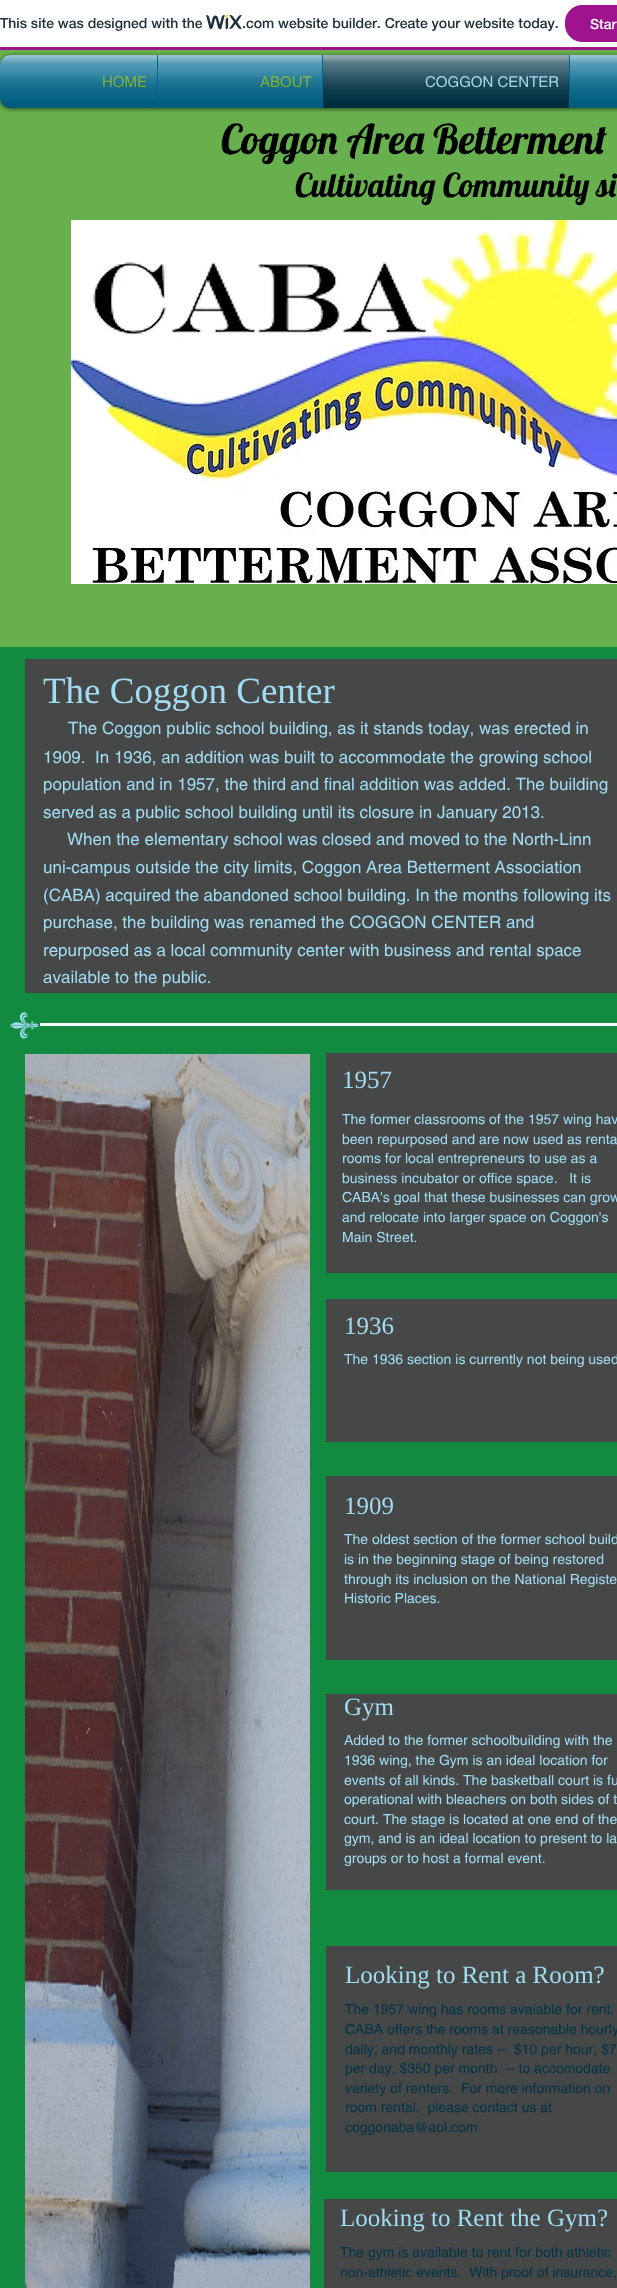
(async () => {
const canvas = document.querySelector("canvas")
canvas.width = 617
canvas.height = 2288
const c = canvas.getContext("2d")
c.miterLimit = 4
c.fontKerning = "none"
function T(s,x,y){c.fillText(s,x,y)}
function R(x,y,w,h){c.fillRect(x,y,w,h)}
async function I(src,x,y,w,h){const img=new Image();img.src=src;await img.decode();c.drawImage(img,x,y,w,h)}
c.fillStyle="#fff"
R(0,0,617,2288)
c.fillStyle="#68b04d"
R(0,50,617,597)
c.fillStyle="#00000099"
c.filter="blur(2px)"
c.beginPath()
c.roundRect(0,56,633,53,10)
c.fill()
c.filter="none"
c.fillStyle="#a0138e"
R(0,47,617,3)
c.font="500 14px 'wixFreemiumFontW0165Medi'"
c.fillStyle="#20303c"
T("This site was designed with the",0,28)
await I("1.png",206,15,36,15)
T(".com website builder. Create your website today.",242,28)
c.fillStyle="#a0138e"
c.beginPath()
c.roundRect(565.5,5.5,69,36,16.5)
c.fill()
c.strokeStyle="#a0138e"
c.stroke()
c.fillStyle="#fff"
T("Star",590,29)
await I("2.png",0,55,10,44)
await I("3.png",0,98,10,10)
c.fillStyle="#006990"
c.beginPath()
c.roundRect(0,55,157,53,[10,0,0,10])
c.fill()
c.font="15px helvetica"
c.fillStyle="#79af13"
T("HOME",102,87)
await I("4.png",0,55,157,46)
await I("5.png",0,76,157,32)
c.fillStyle="#006990"
R(157,55,166,53)
c.fillStyle="#79af13"
T("ABOUT",260,87)
await I("6.png",158,55,164,46)
await I("7.png",158,76,164,32)
c.fillStyle="#003448"
R(323,55,246,53)
c.fillStyle="#a1dcf2"
T("COGGON CENTER",425,87)
await I("8.png",323,55,246,46)
await I("9.png",323,76,246,32)
c.fillStyle="#006990"
R(569,55,48,53)
await I("10.png",570,55,47,46)
await I("11.png",570,76,47,32)
c.font="41px Lobster"
c.fillStyle="#000"
T("Coggon Area Betterment",221,154)
c.font="33px Lobster"
T("Cultivating Community si",295,197)
await I("12.png",71,220,546,364)
c.fillStyle="#128b40"
R(0,647,617,1641)
c.fillStyle="#464747"
R(25,659,592,334)
c.font="37px Liberation Serif"
c.fillStyle="#a1dcf2"
T("The Coggon Center",43,703)
c.font="17px helvetica"
T("The Coggon public school building, as it stands today, was erected in",68,734)
T("1909.  In 1936, an addition was built to accommodate the growing school",43,763)
T("population and in 1957, the third and final addition was added. The building",43,790)
T("served as a public school building until its closure in January 2013.",43,818)
T("When the elementary school was closed and moved to the North-Linn",67,845)
T("uni-campus outside the city limits, Coggon Area Betterment Association",43,873)
T("(CABA) acquired the abandoned school building. In the months following its",43,901)
T("purchase, the building was renamed the COGGON CENTER and",43,928)
T("repurposed as a local community center with business and rental space",43,956)
T("available to the public.",43,983)
await I("13.png",10,1012,29,27)
c.fillStyle="#fff"
R(40,1023,577,3)
await I("14.png",25,1054,285,1234)
c.fillStyle="#464747"
R(326,1053,291,220)
c.font="25px Liberation Serif"
c.fillStyle="#a1dcf2"
T("1957",342,1088)
c.font="14px helvetica"
T("The former classrooms of the 1957 wing hav",342,1124)
T("been repurposed and are now used as renta",342,1144)
T("rooms for local entrepreneurs to use as a",342,1163)
T("business incubator or office space.   It is",342,1183)
T("CABA's goal that these businesses can grow",342,1202)
T("and relocate into larger space on Coggon's",342,1222)
T("Main Street.",342,1242)
c.fillStyle="#464747"
R(326,1299,291,143)
c.font="25px Liberation Serif"
c.fillStyle="#a1dcf2"
T("1936",344,1334)
c.font="14px helvetica"
T("The 1936 section is currently not being used",344,1364)
c.fillStyle="#464747"
R(326,1476,291,184)
c.font="25px Liberation Serif"
c.fillStyle="#a1dcf2"
T("1909",344,1514)
c.font="14px helvetica"
T("The oldest section of the former school build",344,1544)
T("is in the beginning stage of being restored",344,1564)
T("through its inclusion on the National Registe",344,1584)
T("Historic Places.",344,1603)
c.fillStyle="#464747"
R(326,1694,291,196)
c.font="25px Liberation Serif"
c.fillStyle="#a1dcf2"
T("Gym",344,1715)
c.font="14px helvetica"
T("Added to the former schoolbuilding with the",344,1745)
T("1936 wing, the Gym is an ideal location for",344,1765)
T("events of all kinds. The basketball court is fu",344,1785)
T("operational with bleachers on both sides of t",344,1804)
T("court. The stage is located at one end of the",344,1824)
T("gym, and is an ideal location to present to la",344,1843)
T("groups or to host a formal event.",344,1863)
c.fillStyle="#464747"
R(326,1946,291,226)
c.font="25px Liberation Serif"
c.fillStyle="#a1dcf2"
T("Looking to Rent a Room?",345,1983)
c.font="14px helvetica"
c.fillStyle="#003448"
T("The 1957 wing has rooms avaiable for rent.",345,2014)
T("CABA offers the rooms at reasonable hourly",345,2034)
T("daily, and monthly rates --  $10 per hour, $7",345,2054)
T("per day, $350 per month  -- to accomodate",345,2073)
T("variety of renters.  For more information on",345,2093)
T("room rental,  please contact us at",345,2112)
T("coggonaba@aol.com",345,2132)
c.fillStyle="#464747"
R(324,2199,293,89)
c.font="25px Liberation Serif"
c.fillStyle="#a1dcf2"
T("Looking to Rent the Gym?",340,2226)
c.font="14px helvetica"
c.fillStyle="#003448"
T("The gym is available to rent for both athletic",340,2257)
T("non-athletic events.  With proof of insurance,",340,2277)
})()
